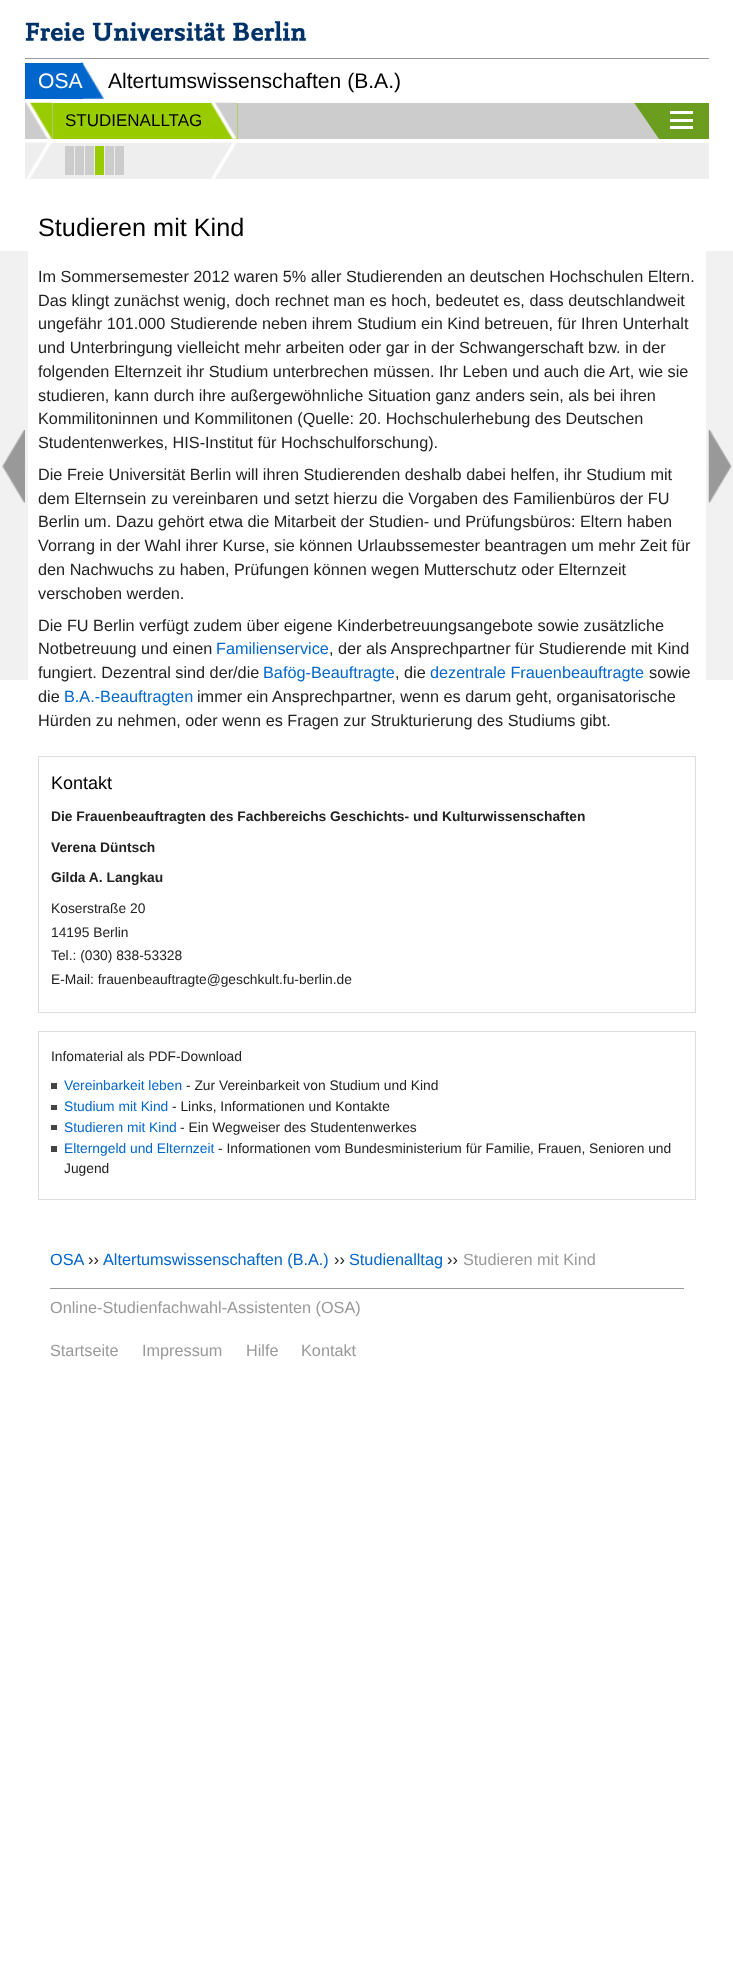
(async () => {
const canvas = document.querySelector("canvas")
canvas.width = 733
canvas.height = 1961
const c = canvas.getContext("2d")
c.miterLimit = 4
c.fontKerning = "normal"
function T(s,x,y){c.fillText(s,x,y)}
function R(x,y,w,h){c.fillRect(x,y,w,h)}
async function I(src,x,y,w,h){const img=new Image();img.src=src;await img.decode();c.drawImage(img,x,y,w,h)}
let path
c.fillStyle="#fff"
R(0,0,733,1961)
await I("1.png",25,21,282,21)
c.fillStyle="#999"
R(25,58,684,1)
await I("2.png",81,62,23,37)
c.fillStyle="#06c"
R(25,63,58,36)
c.font="21.1px Liberation Sans"
c.fillStyle="#fff"
T("OSA",38,88)
c.fillStyle="#000"
T("Altertumswissenschaften (B.A.)",108,88)
c.fillStyle="#ccc"
R(25,103,634,36)
await I("3.png",25,102,28,37)
c.fillStyle="#eee"
R(25,143,684,36)
await I("4.png",25,142,28,37)
c.fillStyle="#9c0"
R(53,103,185,36)
await I("5.png",210,102,28,37)
c.font="17px Liberation Sans"
c.fillStyle="#000"
T("STUDIENALLTAG",65,126)
await I("6.png",210,142,28,37)
c.fillStyle="#ccc"
R(65,146,9,29)
R(75,146,9,29)
R(85,146,9,29)
c.fillStyle="#9c0"
R(95,146,9,29)
c.fillStyle="#ccc"
R(105,146,9,29)
R(115,146,9,29)
c.fillStyle="#6b9e1e"
R(659,103,50,36)
c.save()
c.beginPath()
c.rect(25,103,684,76)
c.clip()
path = new Path2D("M659 102.5v36.5l-25-36.5z")
c.fill(path)
c.restore()
c.fillStyle="#fff"
R(670,111,23,3)
R(670,119,23,3)
R(670,126,23,3)
c.fillStyle="#f1f1f1"
R(0,251,28,429)
await I("7.png",2,430,23,73)
R(706,251,27,429)
await I("8.png",708,430,24,73)
c.font="25.25px Liberation Sans"
c.fillStyle="#000"
T("Studieren mit Kind",38,236)
c.font="16.25px Liberation Sans"
c.fillStyle="#222"
T("Im Sommersemester 2012 waren 5% aller Studierenden an deutschen Hochschulen Eltern.",38,282)
T("Das klingt zunächst wenig, doch rechnet man es hoch, bedeutet es, dass deutschlandweit",38,306)
T("ungefähr 101.000 Studierende neben ihrem Studium ein Kind betreuen, für Ihren Unterhalt",38,329)
T("und Unterbringung vielleicht mehr arbeiten oder gar in der Schwangerschaft bzw. in der",38,353)
T("folgenden Elternzeit ihr Studium unterbrechen müssen. Ihr Leben und auch die Art, wie sie",38,377)
T("studieren, kann durch ihre außergewöhnliche Situation ganz anders sein, als bei ihren",38,401)
T("Kommilitoninnen und Kommilitonen (Quelle: 20. Hochschulerhebung des Deutschen",38,424)
T("Studentenwerkes, HIS-Institut für Hochschulforschung).",38,448)
T("Die Freie Universität Berlin will ihren Studierenden deshalb dabei helfen, ihr Studium mit",38,480)
T("dem Elternsein zu vereinbaren und setzt hierzu die Vorgaben des Familienbüros der FU",38,504)
T("Berlin um. Dazu gehört etwa die Mitarbeit der Studien- und Prüfungsbüros: Eltern haben",38,527)
T("Vorrang in der Wahl ihrer Kurse, sie können Urlaubssemester beantragen um mehr Zeit für",38,551)
T("den Nachwuchs zu haben, Prüfungen können wegen Mutterschutz oder Elternzeit",38,575)
T("verschoben werden.",38,599)
T("Die FU Berlin verfügt zudem über eigene Kinderbetreuungsangebote sowie zusätzliche",38,631)
T("Notbetreuung und einen",38,654)
c.fillStyle="#06c"
T("Familienservice",216,654)
c.fillStyle="#222"
T(", der als Ansprechpartner für Studierende mit Kind",329,654)
T("fungiert. Dezentral sind der/die",38,678)
c.fillStyle="#06c"
T("Bafög-Beauftragte",263,678)
c.fillStyle="#222"
T(", die",395,678)
c.fillStyle="#06c"
T("dezentrale Frauenbeauftragte",430,678)
c.fillStyle="#222"
T("sowie",649,678)
T("die",38,702)
c.fillStyle="#06c"
T("B.A.-Beauftragten",64,702)
c.fillStyle="#222"
T("immer ein Ansprechpartner, wenn es darum geht, organisatorische",197,702)
T("Hürden zu nehmen, oder wenn es Fragen zur Strukturierung des Studiums gibt.",38,726)
c.strokeStyle="#ddd"
c.strokeRect(38.5,756.5,657,256)
c.font="18px Liberation Sans"
c.fillStyle="#000"
T("Kontakt",51,789)
c.font="bold 13.8px Liberation Sans"
c.fillStyle="#222"
T("Die Frauenbeauftragten des Fachbereichs Geschichts- und Kulturwissenschaften",51,821)
T("Verena Düntsch",51,852)
T("Gilda A. Langkau",51,882)
c.font="13.8px Liberation Sans"
T("Koserstraße 20",51,913)
T("14195 Berlin",51,937)
T("Tel.: (030) 838-53328",51,960)
T("E-Mail: frauenbeauftragte@geschkult.fu-berlin.de",51,984)
c.strokeRect(38.5,1031.5,657,168)
T("Infomaterial als PDF-Download",51,1061)
c.fillStyle="#444"
R(51,1083,6,6)
c.fillStyle="#06c"
T("Vereinbarkeit leben",64,1090)
c.fillStyle="#222"
T("- Zur Vereinbarkeit von Studium und Kind",186,1090)
c.fillStyle="#444"
R(51,1105,6,5)
c.fillStyle="#06c"
T("Studium mit Kind",64,1111)
c.fillStyle="#222"
T("- Links, Informationen und Kontakte",172,1111)
c.fillStyle="#444"
R(51,1125,6,5)
c.fillStyle="#06c"
T("Studieren mit Kind",64,1132)
c.fillStyle="#222"
T("- Ein Wegweiser des Studentenwerkes",180,1132)
c.fillStyle="#444"
R(51,1146,6,6)
c.fillStyle="#06c"
T("Elterngeld und Elternzeit",64,1153)
c.fillStyle="#222"
T("- Informationen vom Bundesministerium für Familie, Frauen, Senioren und",218,1153)
T("Jugend",64,1173)
c.font="16.25px Liberation Sans"
c.fillStyle="#06c"
T("OSA",50,1265)
c.fillStyle="#222"
T("››",88,1265)
c.fillStyle="#06c"
T("Altertumswissenschaften (B.A.)",103,1265)
c.fillStyle="#222"
T("››",334,1265)
c.fillStyle="#06c"
T("Studienalltag",349,1265)
c.fillStyle="#222"
T("››",447,1265)
c.fillStyle="#999"
T("Studieren mit Kind",463,1265)
R(50,1288,634,1)
T("Online-Studienfachwahl-Assistenten (OSA)",50,1313)
T("Startseite",50,1356)
T("Impressum",142,1356)
T("Hilfe",246,1356)
T("Kontakt",301,1356)
})()
